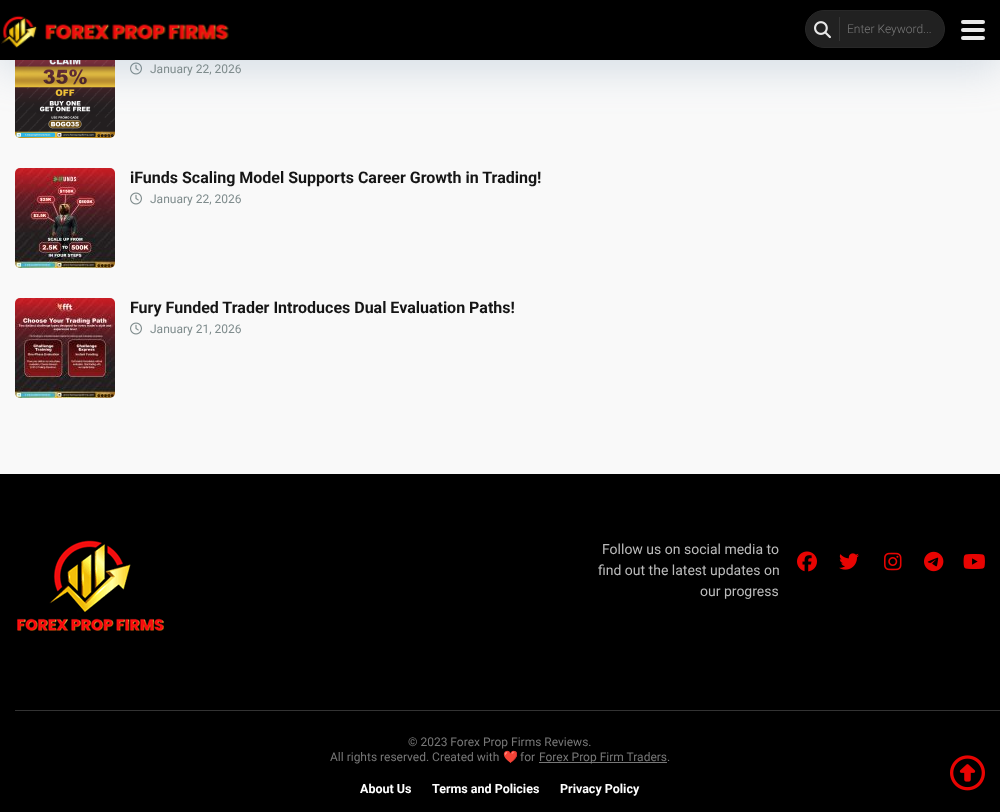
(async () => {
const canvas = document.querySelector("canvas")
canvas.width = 1000
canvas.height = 812
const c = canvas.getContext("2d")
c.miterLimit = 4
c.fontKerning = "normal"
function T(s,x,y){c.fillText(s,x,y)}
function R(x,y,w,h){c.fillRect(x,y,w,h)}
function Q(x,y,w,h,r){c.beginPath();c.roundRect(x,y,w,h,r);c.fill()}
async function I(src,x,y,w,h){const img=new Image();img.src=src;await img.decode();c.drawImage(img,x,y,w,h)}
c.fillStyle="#f9f9f9"
R(0,0,1000,812)
await I("3.png",15,60,100,78)
await I("4.png",130,62,12,13)
c.fillStyle="#6d8dad40"
c.filter="blur(20px)"
c.beginPath()
c.rect(0,10,1000,60)
c.fill()
c.filter="none"
c.fillStyle="#000"
R(0,0,1000,60)
await I("1.png",1,15,228,33)
c.fillStyle="#212121"
c.beginPath()
c.roundRect(805.5,10.5,139,37,18.5)
c.fill()
c.strokeStyle="#282828"
c.stroke()
c.fillStyle="#353535"
R(839,17,1,24)
await I("2.png",814,21,17,18)
c.font="300 12px Roboto"
c.fillStyle="#777"
T("Enter Keyword...",847,33)
c.fillStyle="#e8e8e8"
Q(961,20,24,4,2)
Q(961,28,24,4,2)
Q(961,36,24,4,2)
c.font="12px Roboto"
c.fillStyle="#7f8c8d"
T("January 22, 2026",150,73)
await I("5.png",15,168,100,100)
c.font="bold 16px Roboto"
c.fillStyle="#151515"
T("iFunds Scaling Model Supports Career Growth in Trading!",130,183)
await I("4.png",130,192,12,13)
c.font="12px Roboto"
c.fillStyle="#7f8c8d"
T("January 22, 2026",150,203)
await I("6.png",15,298,100,100)
c.font="bold 16px Roboto"
c.fillStyle="#151515"
T("Fury Funded Trader Introduces Dual Evaluation Paths!",130,313)
await I("4.png",130,322,12,13)
c.font="12px Roboto"
c.fillStyle="#7f8c8d"
T("January 21, 2026",150,333)
c.fillStyle="#000"
R(0,474,1000,338)
await I("7.png",17,540,147,91)
c.font="14px Roboto"
c.fillStyle="#bbb"
T("Follow us on social media to",602,554)
T("find out the latest updates on",598,575)
T("our progress",700,596)
await I("8.png",797,551,20,21)
await I("9.png",839,553,20,17)
await I("10.png",884,552,18,19)
await I("11.png",924,551,20,21)
await I("12.png",963,554,22,15)
c.fillStyle="#333"
R(15,710,985,1)
c.font="12px Roboto"
c.fillStyle="#777"
T("© 2023 Forex Prop Firms Reviews.",408,746)
T("All rights reserved. Created with",330,761)
c.font="12px Noto Color Emoji"
T("❤️",503,761)
c.font="12px Roboto"
T("for",520,761)
R(539,762,128,1)
T("Forex Prop Firm Traders.",539,761)
c.font="bold 12.5px Roboto"
c.fillStyle="#fff"
T("About Us",360,793)
T("Terms and Policies",432,793)
T("Privacy Policy",560,793)
await I("13.png",950,755,35,36)
})()
